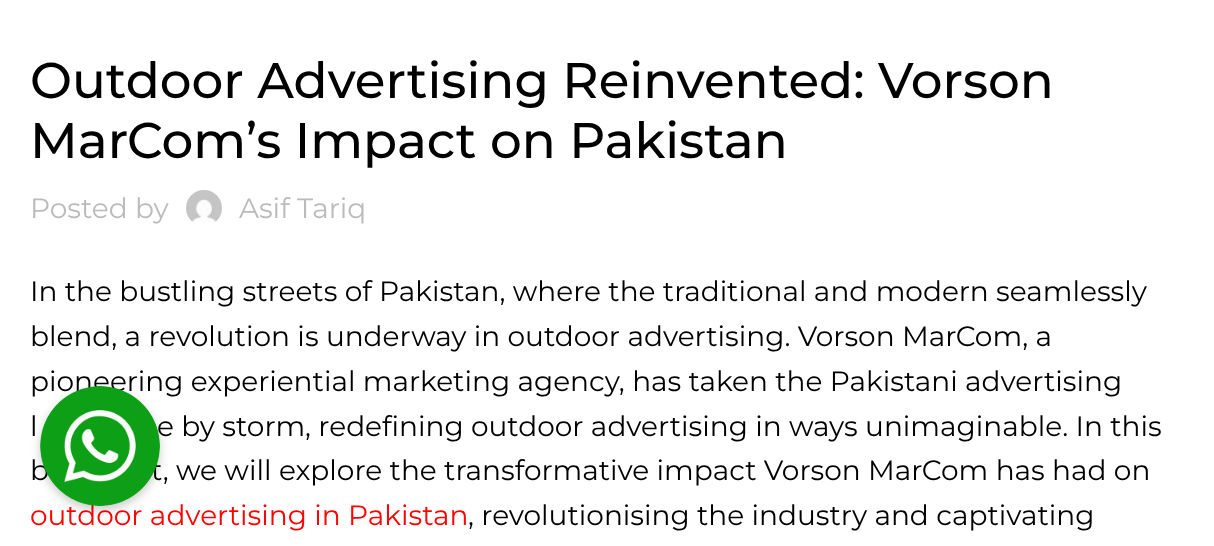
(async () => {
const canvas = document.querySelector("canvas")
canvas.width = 1214
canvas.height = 546
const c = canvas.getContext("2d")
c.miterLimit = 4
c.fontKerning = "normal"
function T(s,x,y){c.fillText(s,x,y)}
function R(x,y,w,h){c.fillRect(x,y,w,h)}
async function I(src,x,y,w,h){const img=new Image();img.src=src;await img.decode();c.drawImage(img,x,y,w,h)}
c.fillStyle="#fff"
R(0,0,1214,546)
c.font="500 50px Montserrat"
c.fillStyle="#000"
T("Outdoor Advertising Reinvented: Vorson",30,98)
T("MarCom’s Impact on Pakistan",30,158)
c.font="28px Montserrat"
c.fillStyle="#bbb"
T("Posted by",30,218)
await I("1.png",186,190,36,33)
T("Asif Tariq",239,218)
c.fillStyle="#000"
T("In the bustling streets of Pakistan, where the traditional and modern seamlessly",30,301)
T("blend, a revolution is underway in outdoor advertising. Vorson MarCom, a",30,346)
T("pioneering experiential marketing agency, has taken the Pakistani advertising",30,391)
T("l",30,436)
T("e by storm, redefining outdoor advertising in ways unimaginable. In this",157,436)
T("b",30,480)
T("t, we will explore the transformative impact Vorson MarCom has had on",151,480)
c.fillStyle="#fe0101"
T("outdoor advertising in Pakistan",30,525)
c.fillStyle="#000"
T(", revolutionising the industry and captivating",468,525)
c.fillStyle="#00000033"
c.filter="blur(5px)"
c.beginPath()
c.roundRect(40,390,120,120,60)
c.fill()
c.filter="none"
await I("2.png",40,386,120,120)
})()
